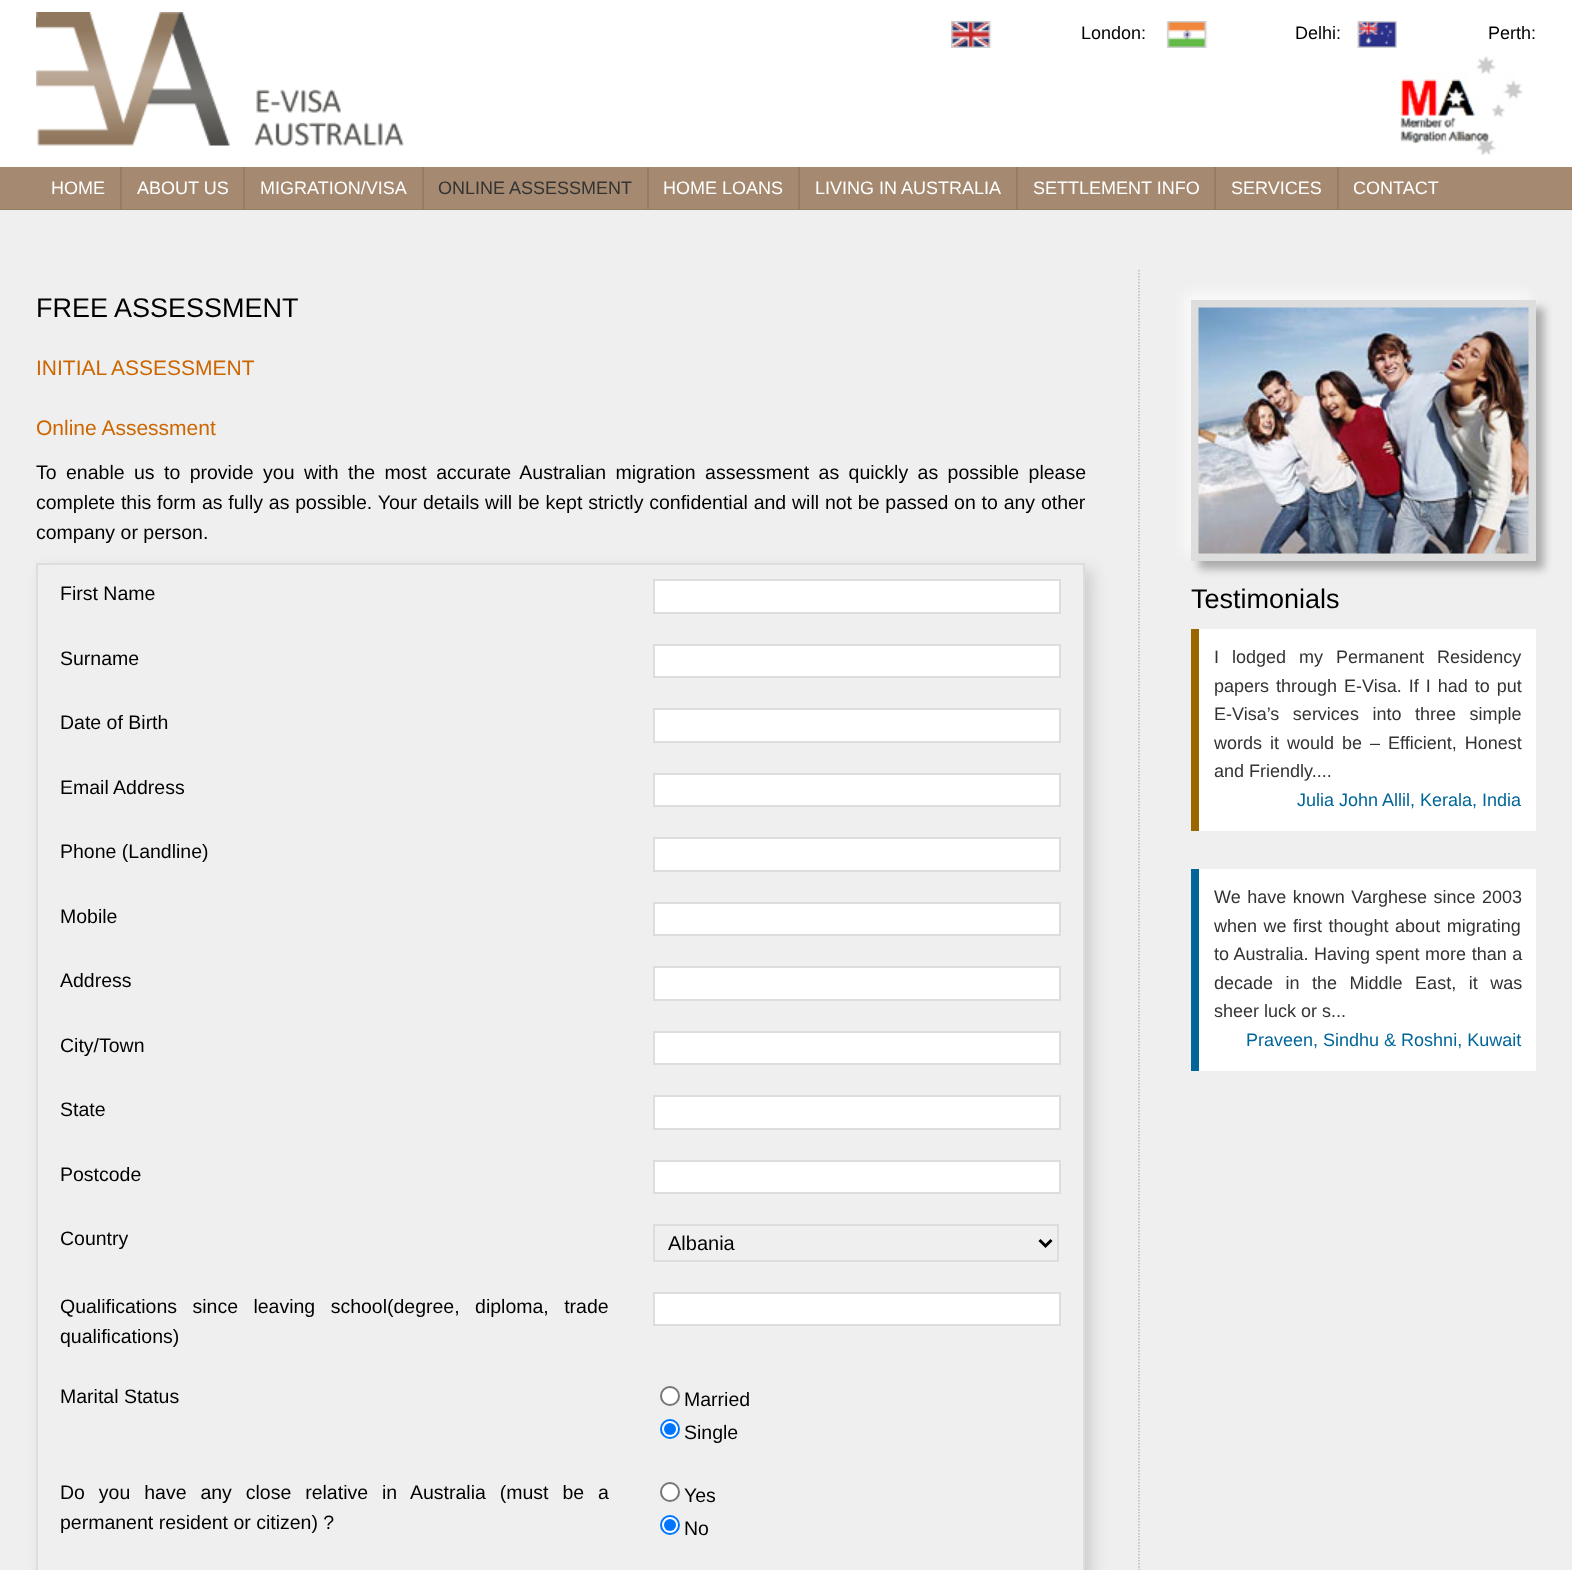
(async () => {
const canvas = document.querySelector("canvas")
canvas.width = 1572
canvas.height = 1570
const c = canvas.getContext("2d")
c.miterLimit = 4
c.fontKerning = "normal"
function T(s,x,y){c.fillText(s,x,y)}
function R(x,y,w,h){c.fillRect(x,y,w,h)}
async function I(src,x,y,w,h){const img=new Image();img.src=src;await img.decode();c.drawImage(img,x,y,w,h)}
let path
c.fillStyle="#fff"
R(0,0,1572,1570)
await I("1.png",36,12,368,134)
await I("2.png",951,21,446,27)
c.font="18px Liberation Sans"
c.fillStyle="#000"
T("London:",1081,39)
T("Delhi:",1295,39)
T("Perth:",1488,39)
await I("3.png",1400,56,123,99)
c.fillStyle="#a58a71"
R(0,167,1572,42)
c.fillStyle="#957c66"
R(0,209,1572,1)
c.fillStyle="#fff"
T("HOME",51,194)
c.fillStyle="#947c65"
R(120,167,2,42)
c.fillStyle="#fff"
T("ABOUT US",137,194)
c.fillStyle="#947c65"
R(243,167,2,42)
c.fillStyle="#fff"
T("MIGRATION/VISA",260,194)
c.fillStyle="#947c65"
R(422,167,2,42)
c.fillStyle="#333"
T("ONLINE ASSESSMENT",438,194)
c.fillStyle="#947c65"
R(647,167,2,42)
c.fillStyle="#fff"
T("HOME LOANS",663,194)
c.fillStyle="#947c65"
R(798,167,2,42)
c.fillStyle="#fff"
T("LIVING IN AUSTRALIA",815,194)
c.fillStyle="#947c65"
R(1016,167,2,42)
c.fillStyle="#fff"
T("SETTLEMENT INFO",1033,194)
c.fillStyle="#947c65"
R(1214,167,2,42)
c.fillStyle="#fff"
T("SERVICES",1231,194)
c.fillStyle="#947c65"
R(1337,167,2,42)
c.fillStyle="#fff"
T("CONTACT",1353,194)
c.fillStyle="#efefef"
R(0,210,1572,1360)
path = new Path2D("M1139 270v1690.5")
c.strokeStyle="#bbb"
c.lineWidth=1.5
c.setLineDash([1.5,1.5])
c.stroke(path)
c.font="27px Liberation Sans"
c.fillStyle="#000"
T("FREE ASSESSMENT",36,317)
c.font="21px Liberation Sans"
c.fillStyle="#c60"
T("INITIAL ASSESSMENT",36,375)
T("Online Assessment",36,435)
c.wordSpacing="4px"
c.font="19.5px Liberation Sans"
c.fillStyle="#000"
T("To enable us to provide you with the most accurate Australian migration assessment as quickly as possible please",36,479)
c.wordSpacing="0.4px"
T("complete this form as fully as possible. Your details will be kept strictly confidential and will not be passed on to any other",36,509)
c.wordSpacing="0px"
T("company or person.",36,539)
c.save()
path = new Path2D("M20 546h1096v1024h-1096zm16 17h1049v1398h-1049z")
c.clip(path,"evenodd")
c.fillStyle="#ccc"
c.filter="blur(7.5px)"
c.beginPath()
c.rect(44,570,1048,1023)
c.fill()
c.filter="none"
c.restore()
c.strokeStyle="#ddd"
c.lineWidth=2
c.setLineDash([])
c.strokeRect(37,564,1047,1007)
T("First Name",60,600)
c.fillStyle="#fff"
c.beginPath()
c.rect(654,580,406,33)
c.fill()
c.stroke()
c.fillStyle="#000"
T("Surname",60,665)
c.fillStyle="#fff"
c.beginPath()
c.rect(654,645,406,32)
c.fill()
c.stroke()
c.fillStyle="#000"
T("Date of Birth",60,729)
c.fillStyle="#fff"
c.beginPath()
c.rect(654,709,406,33)
c.fill()
c.stroke()
c.fillStyle="#000"
T("Email Address",60,794)
c.fillStyle="#fff"
c.beginPath()
c.rect(654,774,406,32)
c.fill()
c.stroke()
c.fillStyle="#000"
T("Phone (Landline)",60,858)
c.fillStyle="#fff"
c.beginPath()
c.rect(654,838,406,33)
c.fill()
c.stroke()
c.fillStyle="#000"
T("Mobile",60,923)
c.fillStyle="#fff"
c.beginPath()
c.rect(654,903,406,32)
c.fill()
c.stroke()
c.fillStyle="#000"
T("Address",60,987)
c.fillStyle="#fff"
c.beginPath()
c.rect(654,967,406,33)
c.fill()
c.stroke()
c.fillStyle="#000"
T("City/Town",60,1052)
c.fillStyle="#fff"
c.beginPath()
c.rect(654,1032,406,32)
c.fill()
c.stroke()
c.fillStyle="#000"
T("State",60,1116)
c.fillStyle="#fff"
c.beginPath()
c.rect(654,1096,406,33)
c.fill()
c.stroke()
c.fillStyle="#000"
T("Postcode",60,1181)
c.fillStyle="#fff"
c.beginPath()
c.rect(654,1161,406,32)
c.fill()
c.stroke()
c.fillStyle="#000"
T("Country",60,1245)
c.strokeRect(654,1225,404,36)
path = new Path2D("M1039.5 1240l6 6l6-6")
c.strokeStyle="#000"
c.lineWidth=3
c.stroke(path)
c.font="20px Liberation Sans"
T("Albania",668,1250)
c.wordSpacing="10px"
c.font="19.5px Liberation Sans"
T("Qualifications since leaving school(degree, diploma, trade",60,1313)
c.wordSpacing="0px"
T("qualifications)",60,1343)
c.fillStyle="#fff"
c.beginPath()
c.rect(654,1293,406,32)
c.fill()
c.strokeStyle="#ddd"
c.lineWidth=2
c.stroke()
c.fillStyle="#000"
T("Marital Status",60,1403)
c.fillStyle="#fff"
c.beginPath()
c.arc(670,1396,9,0,7)
c.fill()
c.strokeStyle="#767676"
c.stroke()
c.fillStyle="#000"
T("Married",684,1406)
c.fillStyle="#fff"
c.beginPath()
c.arc(670,1429,9,0,7)
c.fill()
c.strokeStyle="#0075ff"
c.stroke()
c.fillStyle="#0075ff"
c.beginPath()
c.arc(670,1429,6,0,7)
c.fill()
c.fillStyle="#000"
T("Single",684,1439)
c.wordSpacing="8.5px"
T("Do you have any close relative in Australia (must be a",60,1499)
c.wordSpacing="0px"
T("permanent resident or citizen) ?",60,1529)
c.fillStyle="#fff"
c.beginPath()
c.arc(670,1492,9,0,7)
c.fill()
c.strokeStyle="#767676"
c.stroke()
c.fillStyle="#000"
T("Yes",684,1502)
c.fillStyle="#fff"
c.beginPath()
c.arc(670,1525,9,0,7)
c.fill()
c.strokeStyle="#0075ff"
c.stroke()
c.fillStyle="#0075ff"
c.beginPath()
c.arc(670,1525,6,0,7)
c.fill()
c.fillStyle="#000"
T("No",684,1535)
c.fillStyle="#fafafa"
c.filter="blur(7.5px)"
c.beginPath()
c.rect(1184,293,345,261)
c.fill()
c.filter="none"
c.fillStyle="#aaa"
c.filter="blur(4px)"
c.beginPath()
c.rect(1199,308,345,261)
c.fill()
c.filter="none"
c.strokeStyle="#ddd"
c.lineWidth=8
c.strokeRect(1195,304,337,253)
await I("4.png",1198,307,331,247)
c.font="27px Liberation Sans"
c.fillStyle="#000"
T("Testimonials",1191,608)
c.fillStyle="#fff"
R(1199,629,337,202)
c.fillStyle="#960"
R(1191,629,8,202)
c.wordSpacing="8px"
c.font="18px Liberation Sans"
c.fillStyle="#333"
T("I lodged my Permanent Residency",1214,663)
c.wordSpacing="2px"
T("papers through E-Visa. If I had to put",1214,692)
c.wordSpacing="8.5px"
T("E-Visa’s services into three simple",1214,720)
c.wordSpacing="3px"
T("words it would be – Efficient, Honest",1214,749)
c.wordSpacing="0px"
T("and Friendly....",1214,777)
c.fillStyle="#069"
T("Julia John Allil, Kerala, India",1297,806)
c.fillStyle="#fff"
R(1199,869,337,202)
c.fillStyle="#069"
R(1191,869,8,202)
c.wordSpacing="1.5px"
c.fillStyle="#333"
T("We have known Varghese since 2003",1214,903)
T("when we first thought about migrating",1214,932)
c.wordSpacing="0.5px"
T("to Australia. Having spent more than a",1214,960)
c.wordSpacing="7.5px"
T("decade in the Middle East, it was",1214,989)
c.wordSpacing="0px"
T("sheer luck or s...",1214,1017)
c.fillStyle="#069"
T("Praveen, Sindhu & Roshni, Kuwait",1246,1046)
})()
